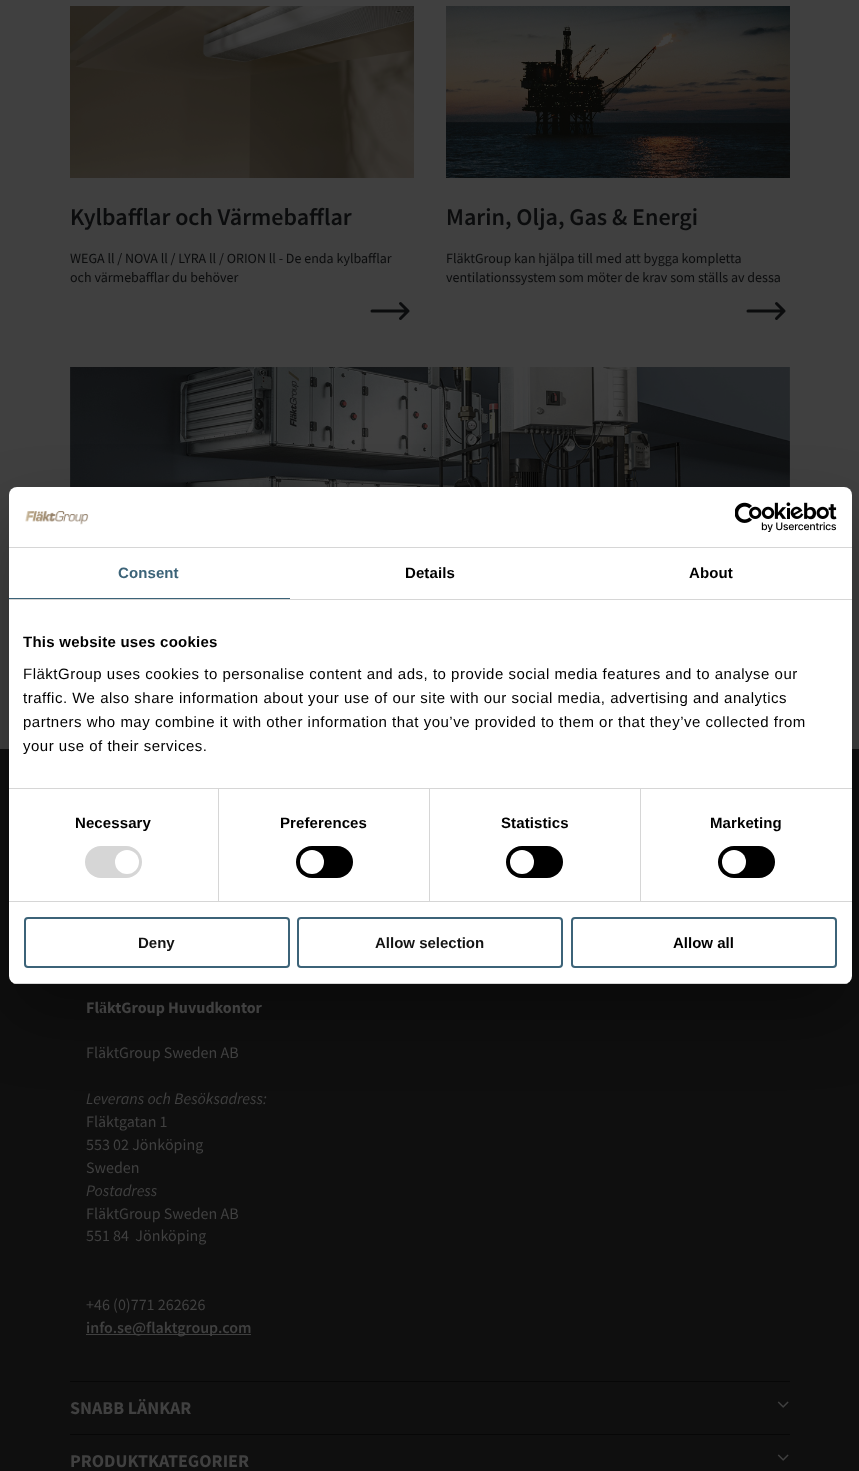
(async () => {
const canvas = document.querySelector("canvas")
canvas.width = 859
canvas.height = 1471
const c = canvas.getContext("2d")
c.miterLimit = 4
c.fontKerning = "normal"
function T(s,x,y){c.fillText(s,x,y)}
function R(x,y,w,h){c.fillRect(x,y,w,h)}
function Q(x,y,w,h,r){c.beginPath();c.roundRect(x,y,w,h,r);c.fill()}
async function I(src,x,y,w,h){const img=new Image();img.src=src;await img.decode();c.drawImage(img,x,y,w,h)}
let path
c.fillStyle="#404040"
R(0,0,859,1471)
await I("1.png",70,6,344,172)
c.font="600 24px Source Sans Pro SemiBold"
c.fillStyle="#0b0c0d"
T("Kylbafflar och Värmebafflar",70,225)
c.font="14px Source Sans Pro"
T("WEGA ll / NOVA ll / LYRA ll / ORION ll - De enda kylbafflar",70,263)
T("och värmebafflar du behöver",70,282)
path = new Path2D("M400.5 303.5l7.5 7.5m0 0l-7.5 7.5m7.5-7.5h-36")
c.strokeStyle="#0b0c0d"
c.lineWidth=3
c.lineCap="round"
c.lineJoin="round"
c.stroke(path)
await I("2.png",446,6,344,172)
c.font="600 24px Source Sans Pro SemiBold"
T("Marin, Olja, Gas & Energi",446,225)
c.font="14px Source Sans Pro"
T("FläktGroup kan hjälpa till med att bygga kompletta",446,263)
T("ventilationssystem som möter de krav som ställs av dessa",446,282)
path = new Path2D("M776.5 303.5l7.5 7.5m0 0l-7.5 7.5m7.5-7.5h-36")
c.stroke(path)
await I("3.png",70,367,720,120)
c.fillStyle="#0f0f0f"
R(0,749,859,722)
c.fillStyle="#0000004d"
c.filter="blur(34px)"
c.beginPath()
c.roundRect(9,519,843,497,8)
c.fill()
c.filter="none"
c.fillStyle="#fff"
Q(9,487,843,497,8)
c.fillStyle="#d6d6d6"
R(9,547,843,1)
await I("4.png",25,511,64,14)
await I("5.png",735,502,102,30)
R(9,599,843,1)
c.fillStyle="#3c6378"
R(9,598,281,1)
c.letterSpacing="0.1px"
c.font="bold 15px Liberation Sans"
T("Consent",118,578)
c.fillStyle="#000"
T("Details",405,578)
T("About",689,578)
c.fillStyle="#d6d6d6"
R(9,788,843,1)
c.letterSpacing="0.25px"
c.fillStyle="#000"
T("This website uses cookies",23,647)
c.letterSpacing="0.5px"
c.font="15px Liberation Sans"
T("FläktGroup uses cookies to personalise content and ads, to provide social media features and to analyse our",23,679)
T("traffic. We also share information about your use of our site with our social media, advertising and analytics",23,703)
T("partners who may combine it with other information that you’ve provided to them or that they’ve collected from",23,727)
T("your use of their services.",23,751)
c.fillStyle="#d6d6d6"
R(9,901,843,1)
R(218,789,1,112)
c.letterSpacing="0.1px"
c.font="bold 15px Liberation Sans"
c.fillStyle="#000"
T("Necessary",75,828)
c.fillStyle="#d6d6d6"
Q(85,846,57,32,16)
c.fillStyle="#fff"
c.beginPath()
c.arc(127,862,12,0,7)
c.fill()
c.fillStyle="#d6d6d6"
R(429,789,1,112)
c.fillStyle="#000"
T("Preferences",280,828)
Q(296,846,57,32,16)
c.fillStyle="#fff"
c.beginPath()
c.arc(312,862,12,0,7)
c.fill()
c.fillStyle="#d6d6d6"
R(640,789,1,112)
c.fillStyle="#000"
T("Statistics",501,828)
Q(506,846,57,32,16)
c.fillStyle="#fff"
c.beginPath()
c.arc(522,862,12,0,7)
c.fill()
c.fillStyle="#000"
T("Marketing",710,828)
Q(718,846,57,32,16)
c.fillStyle="#fff"
c.beginPath()
c.arc(734,862,12,0,7)
c.fill()
c.save()
c.beginPath()
c.roundRect(9,487,843,497,8)
c.clip()
c.fillStyle="#d6d6d6"
R(9,983,843,1)
c.restore()
c.beginPath()
c.roundRect(25,918,264,49,3)
c.strokeStyle="#3c6378"
c.lineWidth=2
c.lineJoin="miter"
c.stroke()
c.letterSpacing="0px"
c.fillStyle="#141414"
T("Deny",138,948)
c.beginPath()
c.roundRect(298,918,264,49,3)
c.stroke()
T("Allow selection",375,948)
c.beginPath()
c.roundRect(572,918,264,49,3)
c.stroke()
c.fillStyle="#000"
T("Allow all",673,948)
c.fillStyle="#070707"
R(70,1381,720,1)
c.font="bold 16px Source Sans Pro"
c.fillStyle="#404040"
T("FläktGroup Huvudkontor",86,1013)
c.font="16px Source Sans Pro"
T("FläktGroup Sweden AB",86,1058)
c.font="italic 16px Source Sans Pro"
T("Leverans och Besöksadress:",86,1104)
c.font="16px Source Sans Pro"
T("Fläktgatan 1",86,1127)
T("553 02 Jönköping",86,1150)
T("Sweden",86,1173)
c.font="italic 16px Source Sans Pro"
T("Postadress",86,1196)
c.font="16px Source Sans Pro"
T("FläktGroup Sweden AB",86,1219)
T("551 84  Jönköping",86,1241)
T("+46 (0)771 262626",86,1310)
R(86,1334,165,1)
c.font="600 16px Source Sans Pro SemiBold"
T("info.se@flaktgroup.com",86,1333)
c.fillStyle="#070707"
R(70,1434,720,1)
c.font="bold 18px Source Sans Pro"
c.fillStyle="#404040"
T("SNABB LÄNKAR",70,1414)
await I("6.png",777,1401,12,7)
T("PRODUKTKATEGORIER",70,1467)
await I("6.png",777,1454,12,7)
})()
